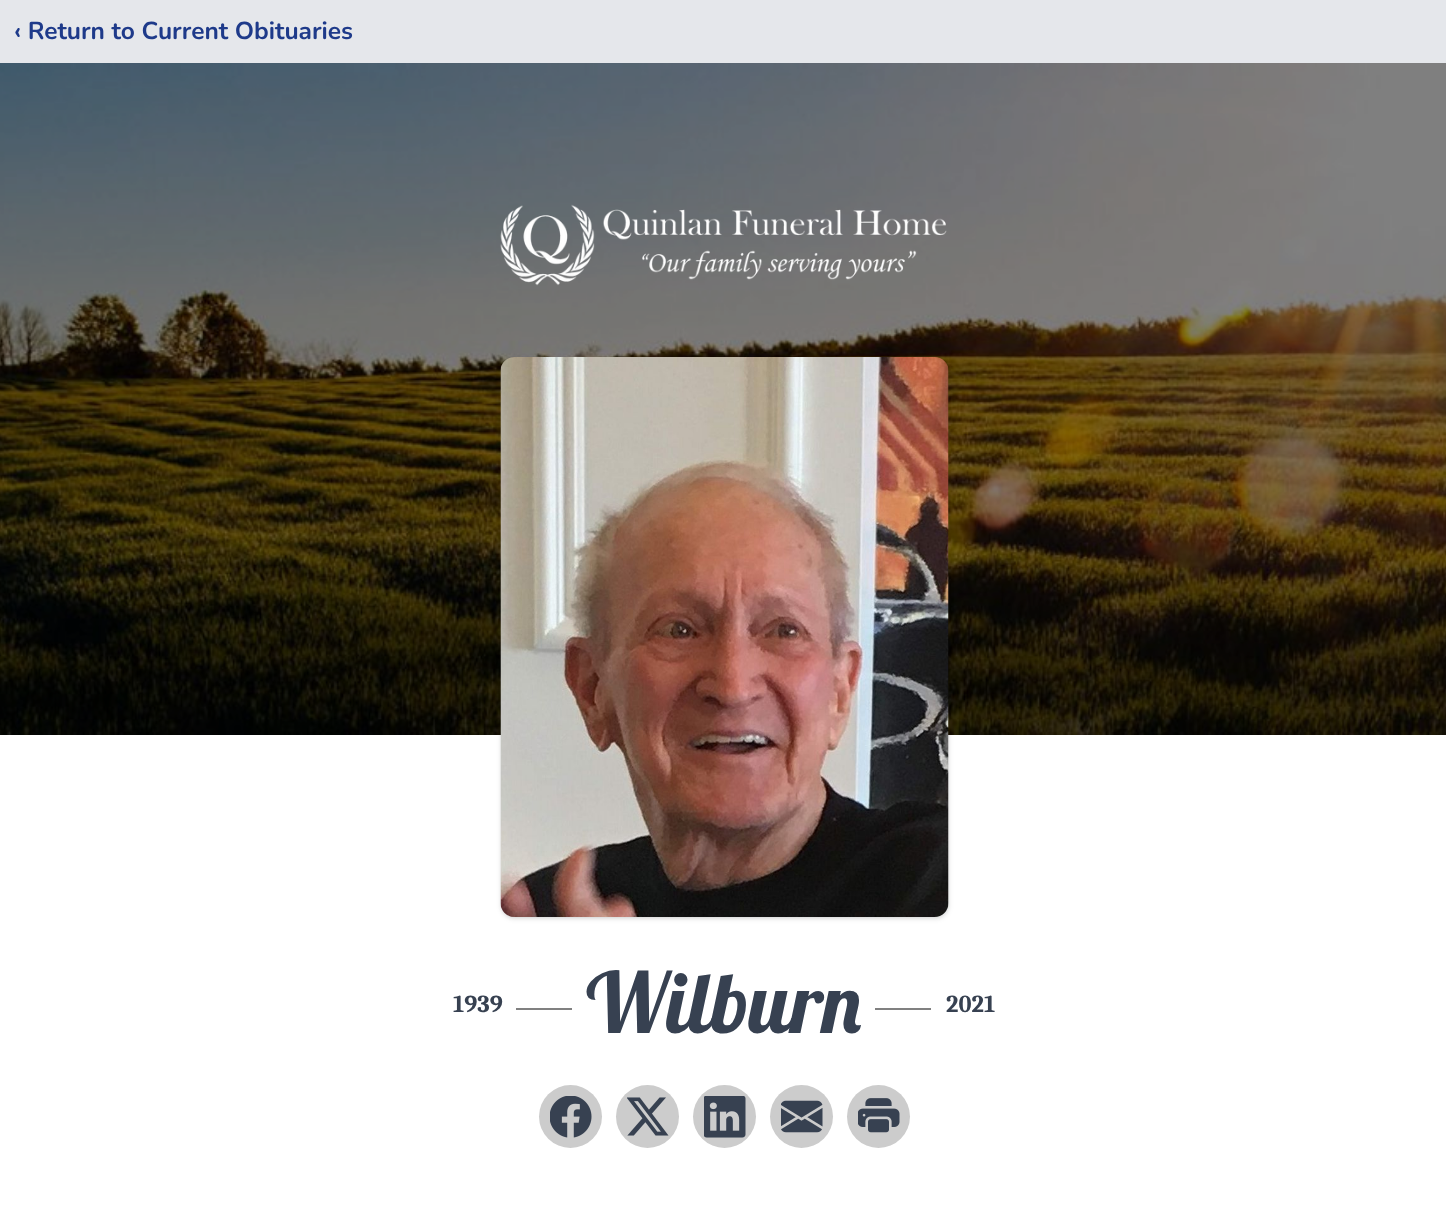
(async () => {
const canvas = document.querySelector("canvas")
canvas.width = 1446
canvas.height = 1231
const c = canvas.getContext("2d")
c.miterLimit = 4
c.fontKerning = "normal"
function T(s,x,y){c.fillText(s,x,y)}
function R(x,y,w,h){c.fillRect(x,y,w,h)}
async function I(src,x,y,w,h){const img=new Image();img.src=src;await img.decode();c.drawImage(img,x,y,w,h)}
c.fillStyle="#fff"
R(0,0,1446,1231)
c.fillStyle="#e5e7eb"
R(0,0,1446,63)
c.font="bold 24.5px Nunito"
c.fillStyle="#1e3a8a"
T("‹ Return to Current Obituaries",14,39)
await I("1.png",0,63,1446,672)
await I("2.png",500,204,447,82)
c.fillStyle="#0000001a"
c.filter="blur(2px)"
c.beginPath()
c.roundRect(502,361,445,556,12)
c.fill()
c.filter="none"
c.filter="blur(2.5px)"
c.beginPath()
c.roundRect(501,359,448,560,14)
c.fill()
c.filter="none"
await I("3.png",500,357,449,560)
c.font="bold 24.5px Caladea"
c.fillStyle="#374151"
T("1939",453,1012)
c.fillStyle="#808080"
R(516,1008,56,2)
c.font="84px Lobster"
c.fillStyle="#374151"
T("Wilburn",586,1033)
c.fillStyle="#808080"
R(875,1008,56,2)
c.font="bold 24.5px Caladea"
c.fillStyle="#374151"
T("2021",946,1012)
c.fillStyle="#ccc"
c.beginPath()
c.arc(570.5,1116.5,31.5,0,7)
c.fill()
await I("4.png",550,1096,42,42)
c.beginPath()
c.arc(647.5,1116.5,31.5,0,7)
c.fill()
await I("5.png",627,1097,42,39)
c.beginPath()
c.arc(724.5,1116.5,31.5,0,7)
c.fill()
await I("6.png",704,1096,42,42)
c.beginPath()
c.arc(801.5,1116.5,31.5,0,7)
c.fill()
await I("7.png",781,1100,42,33)
c.beginPath()
c.arc(878.5,1116.5,31.5,0,7)
c.fill()
await I("8.png",858,1098,42,35)
})()
